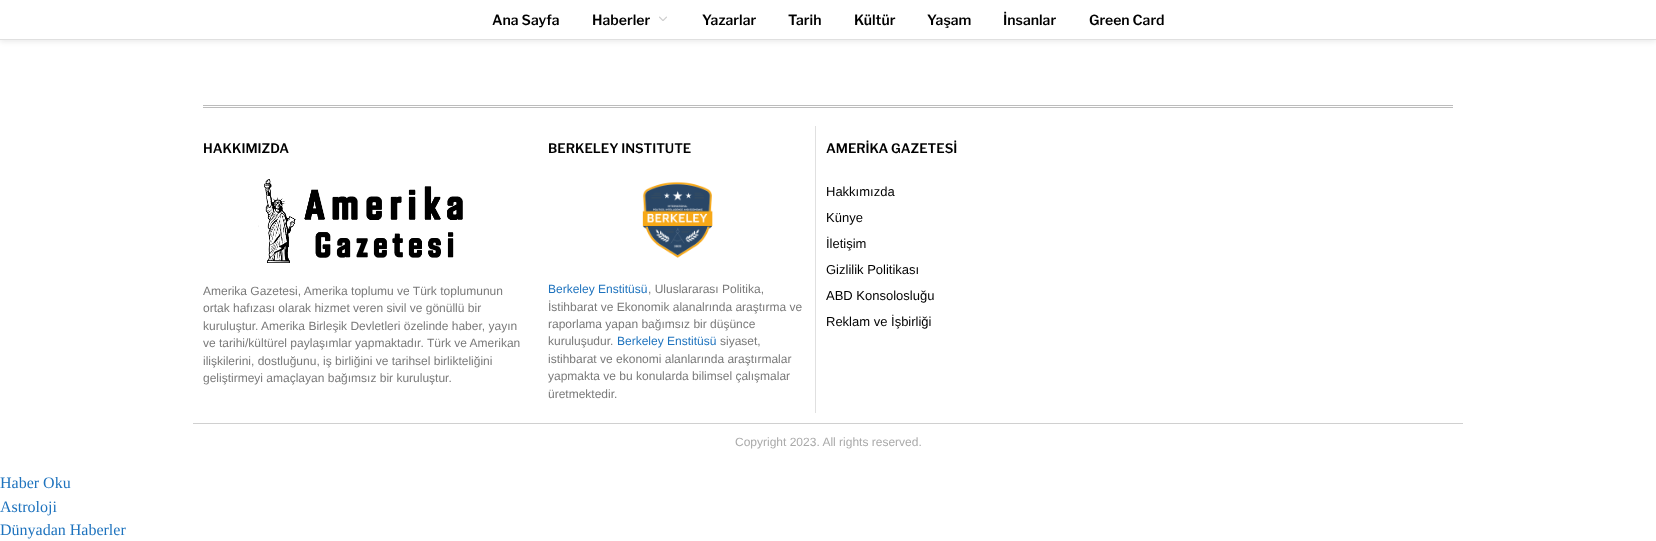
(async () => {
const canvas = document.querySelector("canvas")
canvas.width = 1656
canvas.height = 541
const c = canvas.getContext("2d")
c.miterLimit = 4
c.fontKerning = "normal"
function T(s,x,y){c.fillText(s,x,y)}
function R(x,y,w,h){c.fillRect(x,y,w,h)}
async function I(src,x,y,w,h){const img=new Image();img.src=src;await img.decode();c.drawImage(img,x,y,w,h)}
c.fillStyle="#fff"
R(0,0,1656,541)
c.fillStyle="#00000014"
c.filter="blur(2.5px)"
c.beginPath()
c.rect(0,2,1656,40)
c.fill()
c.filter="none"
c.fillStyle="#e0e0e0"
R(0,39,1656,1)
c.fillStyle="#fff"
R(0,0,1656,39)
c.font="600 14px Libre Franklin"
c.fillStyle="#000"
T("Ana Sayfa",492,25)
T("Haberler",592,25)
await I("1.png",659,16,8,5)
T("Yazarlar",702,25)
T("Tarih",788,25)
T("Kültür",854,25)
T("Yaşam",927,25)
T("İnsanlar",1003,25)
T("Green Card",1089,25)
c.fillStyle="#bcbcbc"
R(203,105,1250,1)
R(203,107,1250,1)
c.font="600 13px Libre Franklin"
c.fillStyle="#000"
T("HAKKIMIZDA",203,153)
await I("2.png",258,179,205,84)
c.font="12px Liberation Sans"
c.fillStyle="#7a7a7a"
T("Amerika Gazetesi, Amerika toplumu ve Türk toplumunun",203,295)
T("ortak hafızası olarak hizmet veren sivil ve gönüllü bir",203,312)
T("kuruluştur. Amerika Birleşik Devletleri özelinde haber, yayın",203,330)
T("ve tarihi/kültürel paylaşımlar yapmaktadır. Türk ve Amerikan",203,347)
T("ilişkilerini, dostluğunu, iş birliğini ve tarihsel birlikteliğini",203,365)
T("geliştirmeyi amaçlayan bağımsız bir kuruluştur.",203,382)
c.font="600 13px Libre Franklin"
c.fillStyle="#000"
T("BERKELEY INSTITUTE",548,153)
await I("3.png",642,181,71,77)
c.font="12px Liberation Sans"
c.fillStyle="#1e73be"
T("Berkeley Enstitüsü",548,293)
c.fillStyle="#7a7a7a"
T(", Uluslararası Politika,",648,293)
T("İstihbarat ve Ekonomik alanalrında araştırma ve",548,311)
T("raporlama yapan bağımsız bir düşünce",548,328)
T("kuruluşudur.",548,345)
c.fillStyle="#1e73be"
T("Berkeley Enstitüsü",617,345)
c.fillStyle="#7a7a7a"
T("siyaset,",720,345)
T("istihbarat ve ekonomi alanlarında araştırmalar",548,363)
T("yapmakta ve bu konularda bilimsel çalışmalar",548,380)
T("üretmektedir.",548,398)
c.fillStyle="#e0e0e0"
R(815,126,1,287)
c.font="600 13px Libre Franklin"
c.fillStyle="#000"
T("AMERİKA GAZETESİ",826,153)
c.font="13px Liberation Sans"
T("Hakkımızda",826,196)
T("Künye",826,222)
T("İletişim",826,248)
T("Gizlilik Politikası",826,274)
T("ABD Konsolosluğu",826,300)
T("Reklam ve İşbirliği",826,326)
c.fillStyle="#d0d0d0"
R(193,423,1270,1)
c.font="12px Liberation Sans"
c.fillStyle="#aaa"
T("Copyright 2023. All rights reserved.",735,446)
c.font="16px Liberation Serif"
c.fillStyle="#1e73be"
T("Haber Oku",0,488)
T("Astroloji",0,512)
T("Dünyadan Haberler",0,535)
})()
